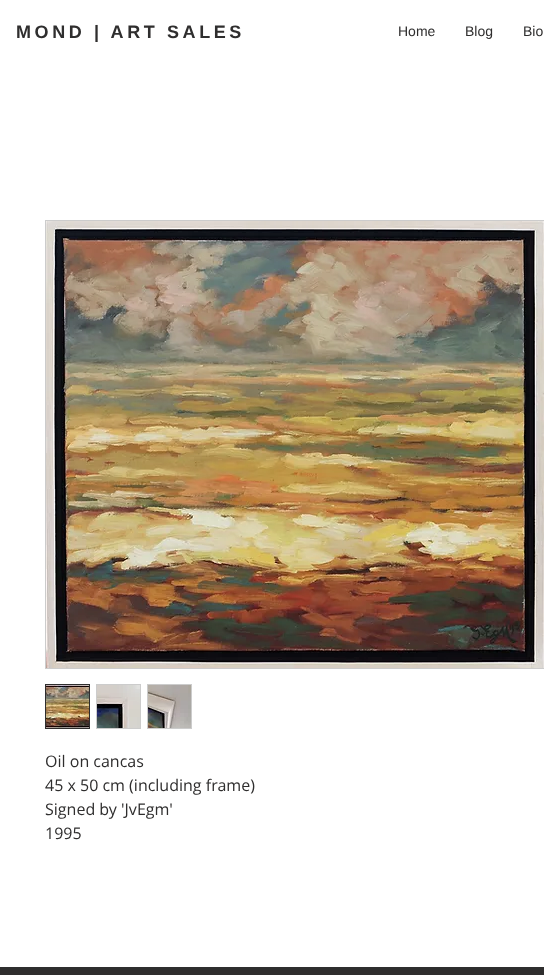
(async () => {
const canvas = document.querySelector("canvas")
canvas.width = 544
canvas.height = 975
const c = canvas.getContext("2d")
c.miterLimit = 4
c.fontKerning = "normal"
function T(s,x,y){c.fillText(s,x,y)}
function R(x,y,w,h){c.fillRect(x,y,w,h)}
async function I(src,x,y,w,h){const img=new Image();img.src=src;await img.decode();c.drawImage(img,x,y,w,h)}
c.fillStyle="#fff"
R(0,0,544,975)
c.letterSpacing="3.6px"
c.font="bold 18px Liberation Sans"
c.fillStyle="#2f2e2e"
T("MOND | ART SALES",16,38)
c.letterSpacing="0px"
c.font="14px Liberation Sans"
T("Home",398,36)
T("Blog",465,36)
T("Bio",523,36)
c.strokeStyle="#ccc"
c.strokeRect(45.5,220.5,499,448)
await I("1.png",46,221,498,447)
c.strokeStyle="#2f2e2e"
c.strokeRect(45.5,684.5,44,44)
await I("2.png",46,685,43,43)
c.strokeStyle="#ccc"
c.strokeRect(96.5,684.5,44,44)
await I("3.png",97,685,43,43)
c.strokeRect(147.5,684.5,44,44)
await I("4.png",148,685,43,43)
c.font="16px Open Sans"
T("Oil on cancas",45,767)
T("45 x 50 cm (including frame)",45,791)
T("Signed by 'JvEgm'",45,815)
T("1995",45,839)
R(0,967,544,8)
})()
